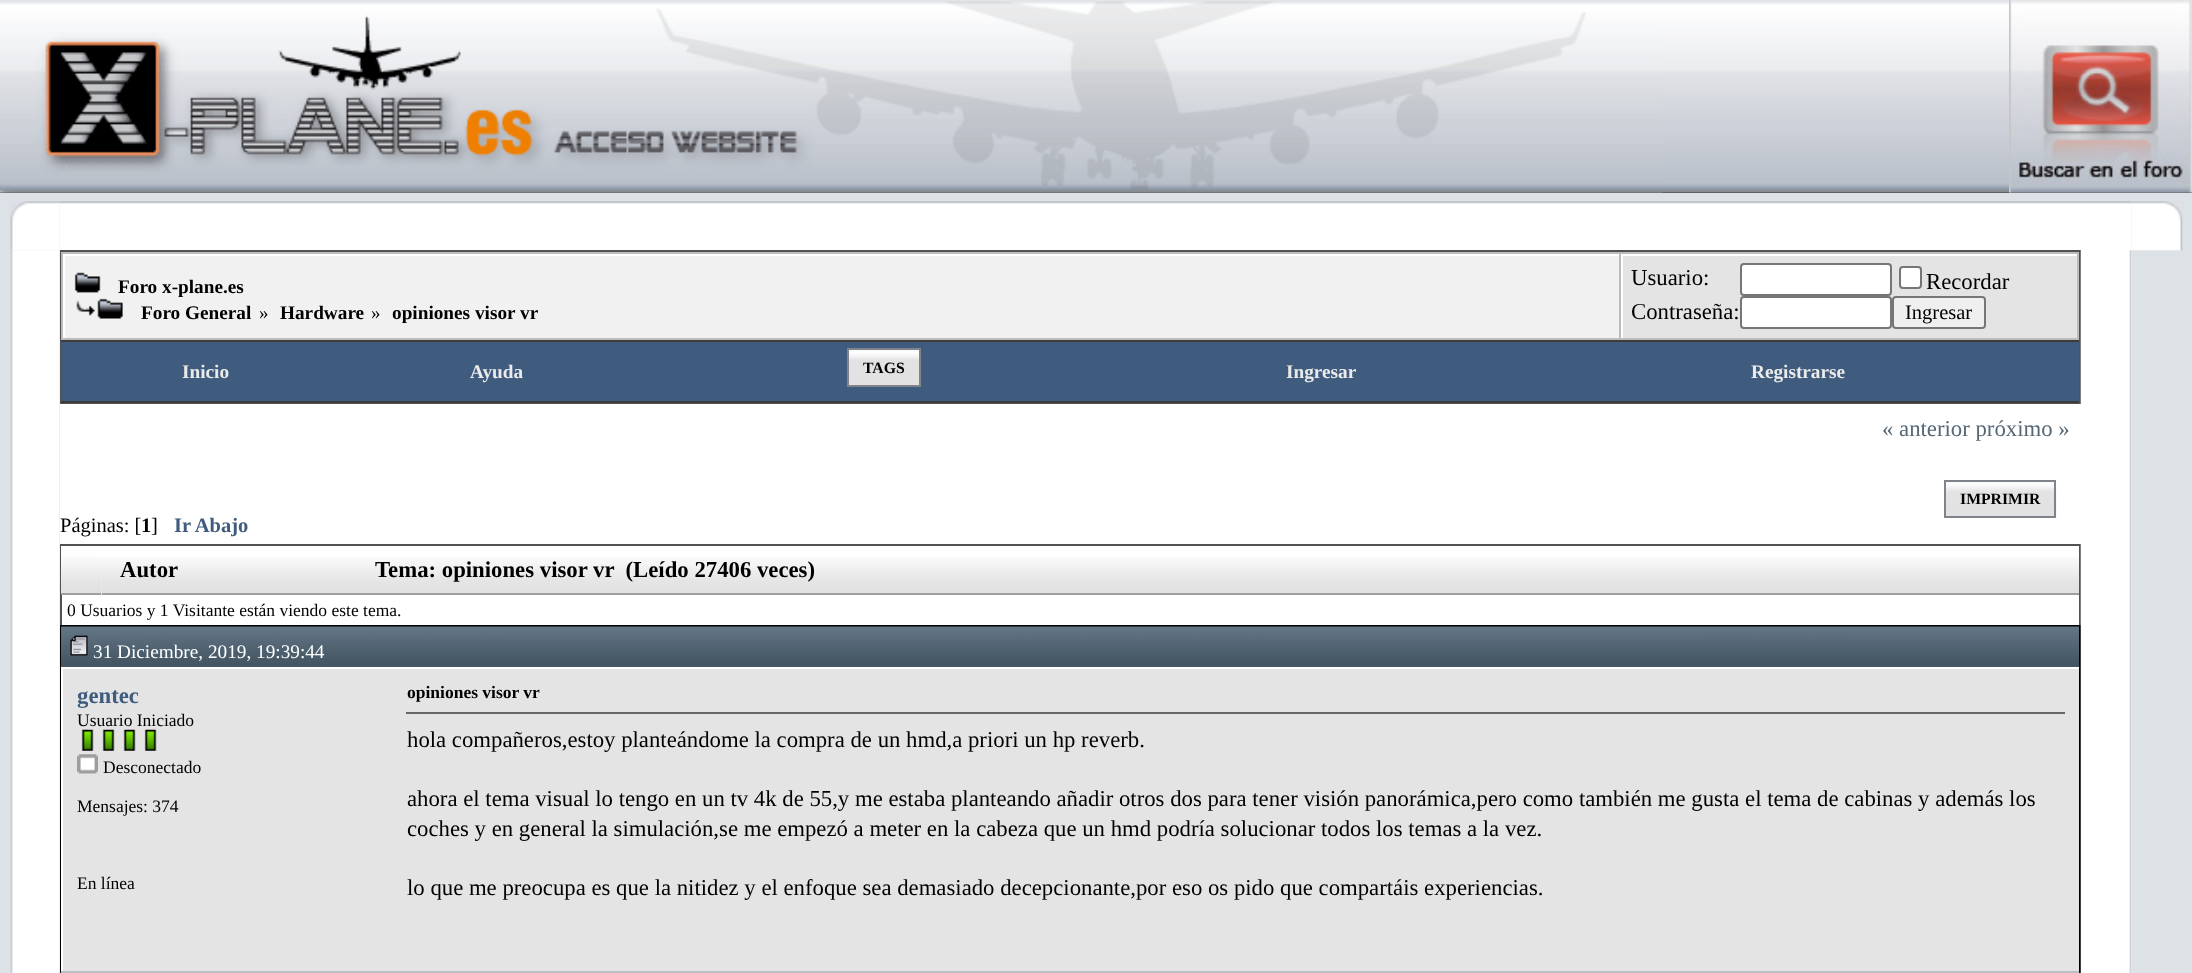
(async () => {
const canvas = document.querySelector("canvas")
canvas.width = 2192
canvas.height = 973
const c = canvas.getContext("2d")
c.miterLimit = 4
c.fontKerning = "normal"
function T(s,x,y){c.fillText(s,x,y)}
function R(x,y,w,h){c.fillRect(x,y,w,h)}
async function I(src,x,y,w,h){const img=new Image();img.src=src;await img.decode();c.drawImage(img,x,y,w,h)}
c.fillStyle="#dce2e5"
R(0,0,2192,973)
c.fillStyle="#33373d"
R(0,192,2192,1)
await I("1.png",0,0,2192,193)
await I("2.png",0,1,1663,192)
await I("3.png",2009,0,183,193)
await I("5.png",59,201,2073,50)
await I("4.png",10,201,50,49)
c.fillStyle="#fff"
R(60,250,2072,723)
c.strokeStyle="#525252"
c.lineWidth=2
c.strokeRect(61,251,2019,152)
c.fillStyle="#525252"
R(60,544,2021,2)
R(2079,544,2,81)
c.fillStyle="#000"
R(60,625,2021,348)
await I("20.png",2080,250,52,723)
await I("6.png",2131,201,52,50)
await I("7.png",10,250,50,723)
c.fillStyle="#bcbcbc"
R(61,252,2018,88)
c.fillStyle="#f1f1f1"
R(65,256,1554,82)
c.fillStyle="#fff"
R(63,254,1556,2)
R(63,254,2,84)
await I("8.png",74,272,27,21)
c.font="bold 19.25px Liberation Serif"
c.fillStyle="#000"
T("Foro x-plane.es",118,293)
await I("9.png",76,300,19,16)
await I("10.png",97,298,26,21)
T("Foro General",141,319)
c.font="19px Liberation Serif"
T("»",259,319)
c.font="bold 19.25px Liberation Serif"
T("Hardware",280,319)
c.font="19px Liberation Serif"
T("»",371,319)
c.font="bold 19.25px Liberation Serif"
T("opiniones visor vr",392,319)
c.fillStyle="#e4e4e4"
R(1623,256,454,82)
c.fillStyle="#fff"
R(1621,254,456,2)
R(1621,254,2,84)
c.font="22.75px Liberation Serif"
c.fillStyle="#000"
T("Usuario:",1631,285)
c.fillStyle="#fff"
c.beginPath()
c.roundRect(1741,264,150,31,3)
c.fill()
c.strokeStyle="#767676"
c.stroke()
c.beginPath()
c.roundRect(1900,267,21,21,3)
c.fill()
c.stroke()
c.fillStyle="#000"
T("Recordar",1926,289)
T("Contraseña:",1631,319)
c.fillStyle="#fff"
c.beginPath()
c.roundRect(1741,297,150,31,3)
c.fill()
c.stroke()
c.fillStyle="#efefef"
c.beginPath()
c.roundRect(1893,297,92,31,3)
c.fill()
c.stroke()
c.font="20.5px Liberation Serif"
c.fillStyle="#000"
T("Ingresar",1905,319)
c.fillStyle="#3f5b7d"
R(61,342,2018,59)
c.fillStyle="#3c3c3c"
R(61,340,2018,2)
R(61,401,2018,2)
c.font="bold 19.25px Liberation Serif"
c.fillStyle="#ebebeb"
T("Inicio",182,378)
T("Ayuda",470,378)
await I("11.png",849,350,70,35)
c.strokeStyle="#7f838c"
c.strokeRect(848,349,72,37)
c.font="bold 15.75px Liberation Serif"
c.fillStyle="#000"
T("TAGS",863,373)
c.font="bold 19.25px Liberation Serif"
c.fillStyle="#ebebeb"
T("Ingresar",1286,378)
T("Registrarse",1751,378)
c.font="22.75px Liberation Serif"
c.fillStyle="#566776"
T("« anterior próximo »",1882,436)
await I("12.png",1946,481,111,37)
c.strokeRect(1945,481,110,36)
c.font="bold 15.75px Liberation Serif"
c.fillStyle="#000"
T("IMPRIMIR",1960,504)
c.font="20.5px Liberation Serif"
T("Páginas: [",60,532)
c.font="bold 20.5px Liberation Serif"
T("1",141,532)
c.font="20.5px Liberation Serif"
T("]",151,532)
c.font="bold 20.5px Liberation Serif"
c.fillStyle="#3f5b7d"
T("Ir Abajo",174,532)
c.fillStyle="#525252"
R(60,544,2,81)
c.fillStyle="#fff"
R(61,546,1,47)
await I("13.png",61,556,41,37)
c.fillStyle="#9f9f9f"
R(61,593,41,2)
await I("14.png",101,557,263,38)
R(102,593,1977,2)
c.font="bold 22.75px Liberation Serif"
c.fillStyle="#000"
T("Autor",120,577)
await I("15.png",364,557,1715,36)
T("Tema: opiniones visor vr  (Leído 27406 veces)",375,577)
c.font="17.5px Liberation Serif"
T("0 Usuarios y 1 Visitante están viendo este tema.",67,616)
c.fillStyle="#5a5e61"
R(61,627,2018,40)
await I("16.png",61,626,2018,41)
await I("17.png",70,635,18,21)
c.font="19.25px Liberation Serif"
c.fillStyle="#fff"
T("31 Diciembre, 2019, 19:39:44",93,658)
c.fillStyle="#e4e4e4"
R(63,669,2016,302)
c.fillStyle="#fff"
R(61,667,2018,2)
R(61,667,2,304)
c.font="bold 22.75px Liberation Serif"
c.fillStyle="#3f5b7d"
T("gentec",77,703)
c.font="17.5px Liberation Serif"
c.fillStyle="#000"
T("Usuario Iniciado",77,726)
await I("18.png",81,729,13,22)
await I("18.png",102,729,13,22)
await I("18.png",123,729,13,22)
await I("18.png",144,729,13,22)
await I("19.png",77,754,21,20)
T("Desconectado",103,773)
T("Mensajes: 374",77,812)
T("En línea",77,889)
c.font="bold 17.5px Liberation Serif"
T("opiniones visor vr",407,698)
c.fillStyle="#666"
R(406,712,1659,2)
c.font="22.75px Liberation Serif"
c.fillStyle="#000"
T("hola compañeros,estoy planteándome la compra de un hmd,a priori un hp reverb.",407,747)
T("ahora el tema visual lo tengo en un tv 4k de 55,y me estaba planteando añadir otros dos para tener visión panorámica,pero como también me gusta el tema de cabinas y además los",407,806)
T("coches y en general la simulación,se me empezó a meter en la cabeza que un hmd podría solucionar todos los temas a la vez.",407,836)
T("lo que me preocupa es que la nitidez y el enfoque sea demasiado decepcionante,por eso os pido que compartáis experiencias.",407,895)
c.fillStyle="#babfc5"
R(61,971,2018,2)
})()
